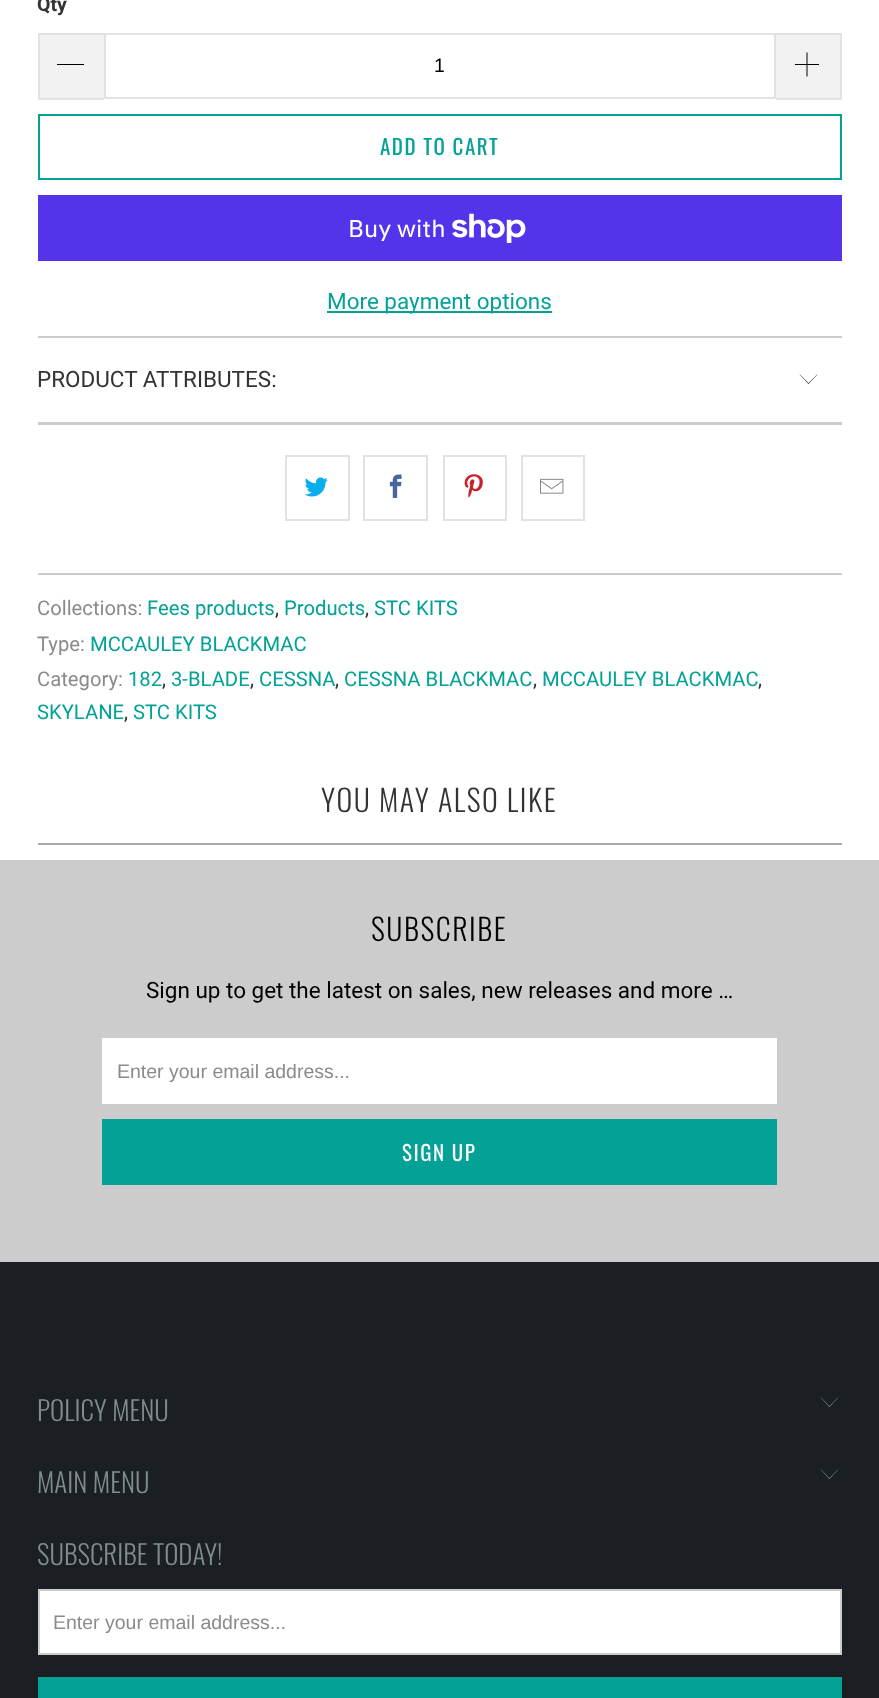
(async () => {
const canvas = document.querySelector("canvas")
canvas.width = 879
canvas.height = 1698
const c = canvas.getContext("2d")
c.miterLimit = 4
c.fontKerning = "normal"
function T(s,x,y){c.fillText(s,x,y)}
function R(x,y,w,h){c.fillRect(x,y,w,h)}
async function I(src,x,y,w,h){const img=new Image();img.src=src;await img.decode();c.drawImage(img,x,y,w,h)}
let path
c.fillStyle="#fff"
R(0,0,879,1698)
c.font="bold 19.5px Roboto"
c.fillStyle="#333"
T("Qty",37,11)
c.fillStyle="#f2f2f2"
R(40,35,64,63)
c.fillStyle="#e2e2e2"
R(38,33,66,2)
R(38,98,66,2)
R(38,33,2,66)
c.fillStyle="#000"
R(57,64,27,1)
c.strokeStyle="#e2e2e2"
c.lineWidth=2
c.strokeRect(105,34,670,64)
c.font="19.5px Liberation Sans"
T("1",434,72)
c.fillStyle="#f2f2f2"
R(776,35,64,63)
c.fillStyle="#e2e2e2"
R(776,33,66,2)
R(840,33,2,66)
R(776,98,66,2)
await I("1.png",795,52,24,25)
c.strokeStyle="#03a196"
c.strokeRect(39,115,802,64)
c.letterSpacing="1.5px"
c.font="21px Oswald"
c.fillStyle="#03a196"
T("ADD TO CART",380,155)
c.fillStyle="#5433eb"
R(38,195,804,66)
c.letterSpacing="0px"
c.font="24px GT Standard"
c.fillStyle="#fff"
T("Buy with",348,237)
await I("2.png",452,213,74,30)
c.fillStyle="#03a196"
R(327,311,225,2)
c.font="22.5px Roboto"
T("More payment options",327,309)
c.fillStyle="#ccc"
R(38,336,804,2)
R(38,422,804,3)
c.fillStyle="#333"
T("PRODUCT ATTRIBUTES:",37,387)
path = new Path2D("M808.5 384l-9-9.5h.5l8.5 8.5l8.5-8.5h.5z")
c.fill(path)
c.strokeStyle="#e2e2e2"
c.strokeRect(286,456,63,64)
await I("3.png",304,477,24,20)
c.strokeRect(364,456,63,64)
await I("4.png",389,474,13,24)
c.strokeRect(444,456,62,64)
await I("5.png",464,474,19,24)
c.strokeRect(522,456,62,64)
await I("6.png",540,478,24,16)
c.fillStyle="#ccc"
R(38,573,804,2)
c.font="20.25px Roboto"
c.fillStyle="#8c8b8b"
T("Collections:",37,615)
c.fillStyle="#03a196"
T("Fees products",147,615)
c.fillStyle="#333"
T(",",275,615)
c.fillStyle="#03a196"
T("Products",284,615)
c.fillStyle="#333"
T(",",365,615)
c.fillStyle="#03a196"
T("STC KITS",374,615)
c.fillStyle="#8c8b8b"
T("Type:",37,651)
c.fillStyle="#03a196"
T("MCCAULEY BLACKMAC",90,651)
c.fillStyle="#8c8b8b"
T("Category:",37,686)
c.fillStyle="#03a196"
T("182",128,686)
c.fillStyle="#333"
T(",",162,686)
c.fillStyle="#03a196"
T("3-BLADE",171,686)
c.fillStyle="#333"
T(",",250,686)
c.fillStyle="#03a196"
T("CESSNA",259,686)
c.fillStyle="#333"
T(",",335,686)
c.fillStyle="#03a196"
T("CESSNA BLACKMAC",344,686)
c.fillStyle="#333"
T(",",533,686)
c.fillStyle="#03a196"
T("MCCAULEY BLACKMAC",542,686)
c.fillStyle="#333"
T(",",758,686)
c.fillStyle="#03a196"
T("SKYLANE",37,719)
c.fillStyle="#333"
T(",",124,719)
c.fillStyle="#03a196"
T("STC KITS",133,719)
c.letterSpacing="1.5px"
c.font="300 30px Oswald"
c.fillStyle="#333"
T("YOU MAY ALSO LIKE",321,812)
c.fillStyle="#aaa"
R(38,843,804,2)
c.fillStyle="#ccc"
R(0,860,879,402)
c.fillStyle="#000"
T("SUBSCRIBE",371,941)
c.letterSpacing="0px"
c.font="22.5px Roboto"
T("Sign up to get the latest on sales, new releases and more …",146,998)
c.fillStyle="#fff"
R(102,1038,675,66)
c.font="19.5px Liberation Sans"
c.fillStyle="#8c8b8b"
T("Enter your email address...",117,1078)
c.fillStyle="#03a196"
R(102,1119,675,66)
c.letterSpacing="1.5px"
c.font="21px Oswald"
c.fillStyle="#fff"
T("SIGN UP",402,1161)
c.fillStyle="#1b1f23"
R(0,1262,879,436)
c.letterSpacing="0px"
c.font="300 27px Oswald"
c.fillStyle="#7f8c8d"
T("POLICY MENU",37,1421)
path = new Path2D("M829.5 1407l-9-9.5h.5l8.5 8.5l8.5-8.5h.5z")
c.fill(path)
T("MAIN MENU",37,1493)
path = new Path2D("M829.5 1479l-9-9.5h.5l8.5 8.5l8.5-8.5h.5z")
c.fill(path)
T("SUBSCRIBE TODAY!",37,1565)
c.fillStyle="#fff"
c.beginPath()
c.rect(39,1590,802,64)
c.fill()
c.strokeStyle="#ccc"
c.stroke()
c.font="19.5px Liberation Sans"
c.fillStyle="#8c8b8b"
T("Enter your email address...",53,1629)
c.fillStyle="#03a196"
R(38,1677,804,21)
})()
